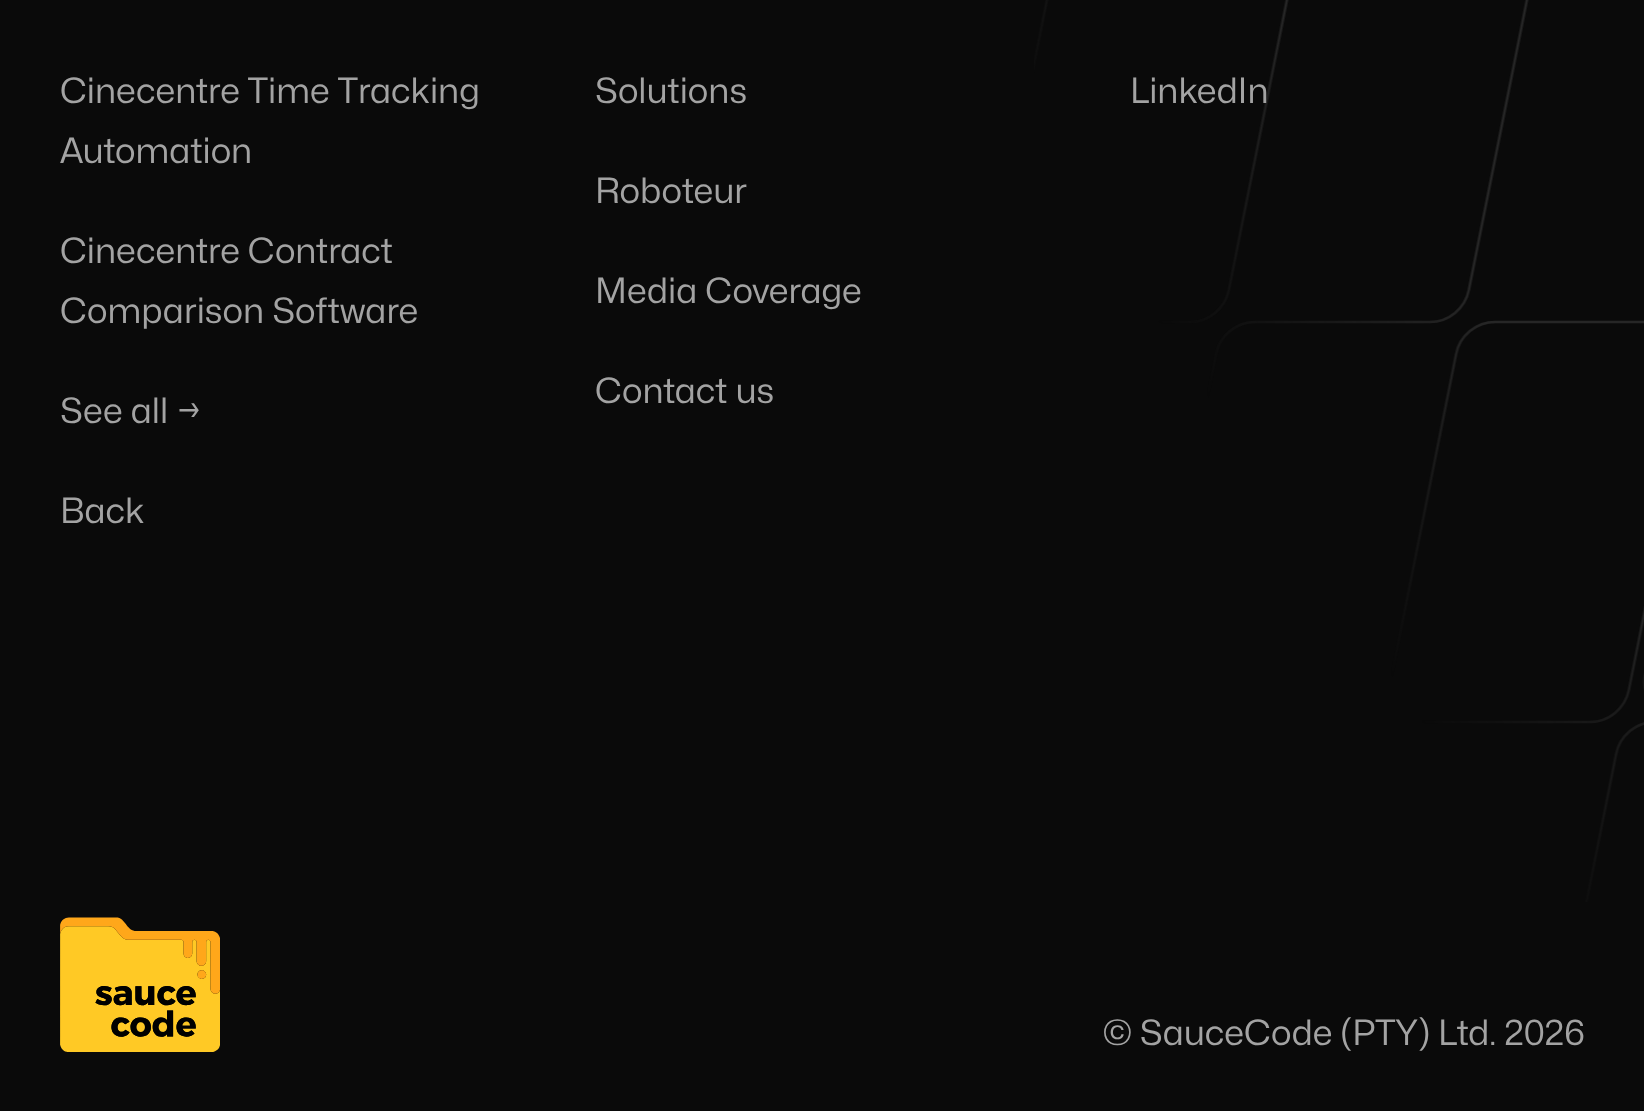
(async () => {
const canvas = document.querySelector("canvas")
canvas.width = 1644
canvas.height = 1111
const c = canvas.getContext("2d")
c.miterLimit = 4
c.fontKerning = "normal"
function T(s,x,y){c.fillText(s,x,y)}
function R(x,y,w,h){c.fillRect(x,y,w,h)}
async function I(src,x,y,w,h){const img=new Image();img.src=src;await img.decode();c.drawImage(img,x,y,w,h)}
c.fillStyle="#0a0a0a"
R(0,0,1644,1111)
await I("1.png",1034,0,610,902)
c.font="35px Mona Sans"
c.fillStyle="#a3a3a3"
T("Cinecentre Time Tracking",60,103)
T("Automation",60,163)
T("Cinecentre Contract",60,263)
T("Comparison Software",60,323)
T("See all →",60,423)
T("Back",60,523)
T("Solutions",595,103)
T("Roboteur",595,203)
T("Media Coverage",595,303)
T("Contact us",595,403)
T("LinkedIn",1130,103)
await I("2.png",60,917,160,135)
T("© SauceCode (PTY) Ltd. 2026",1103,1045)
})()
